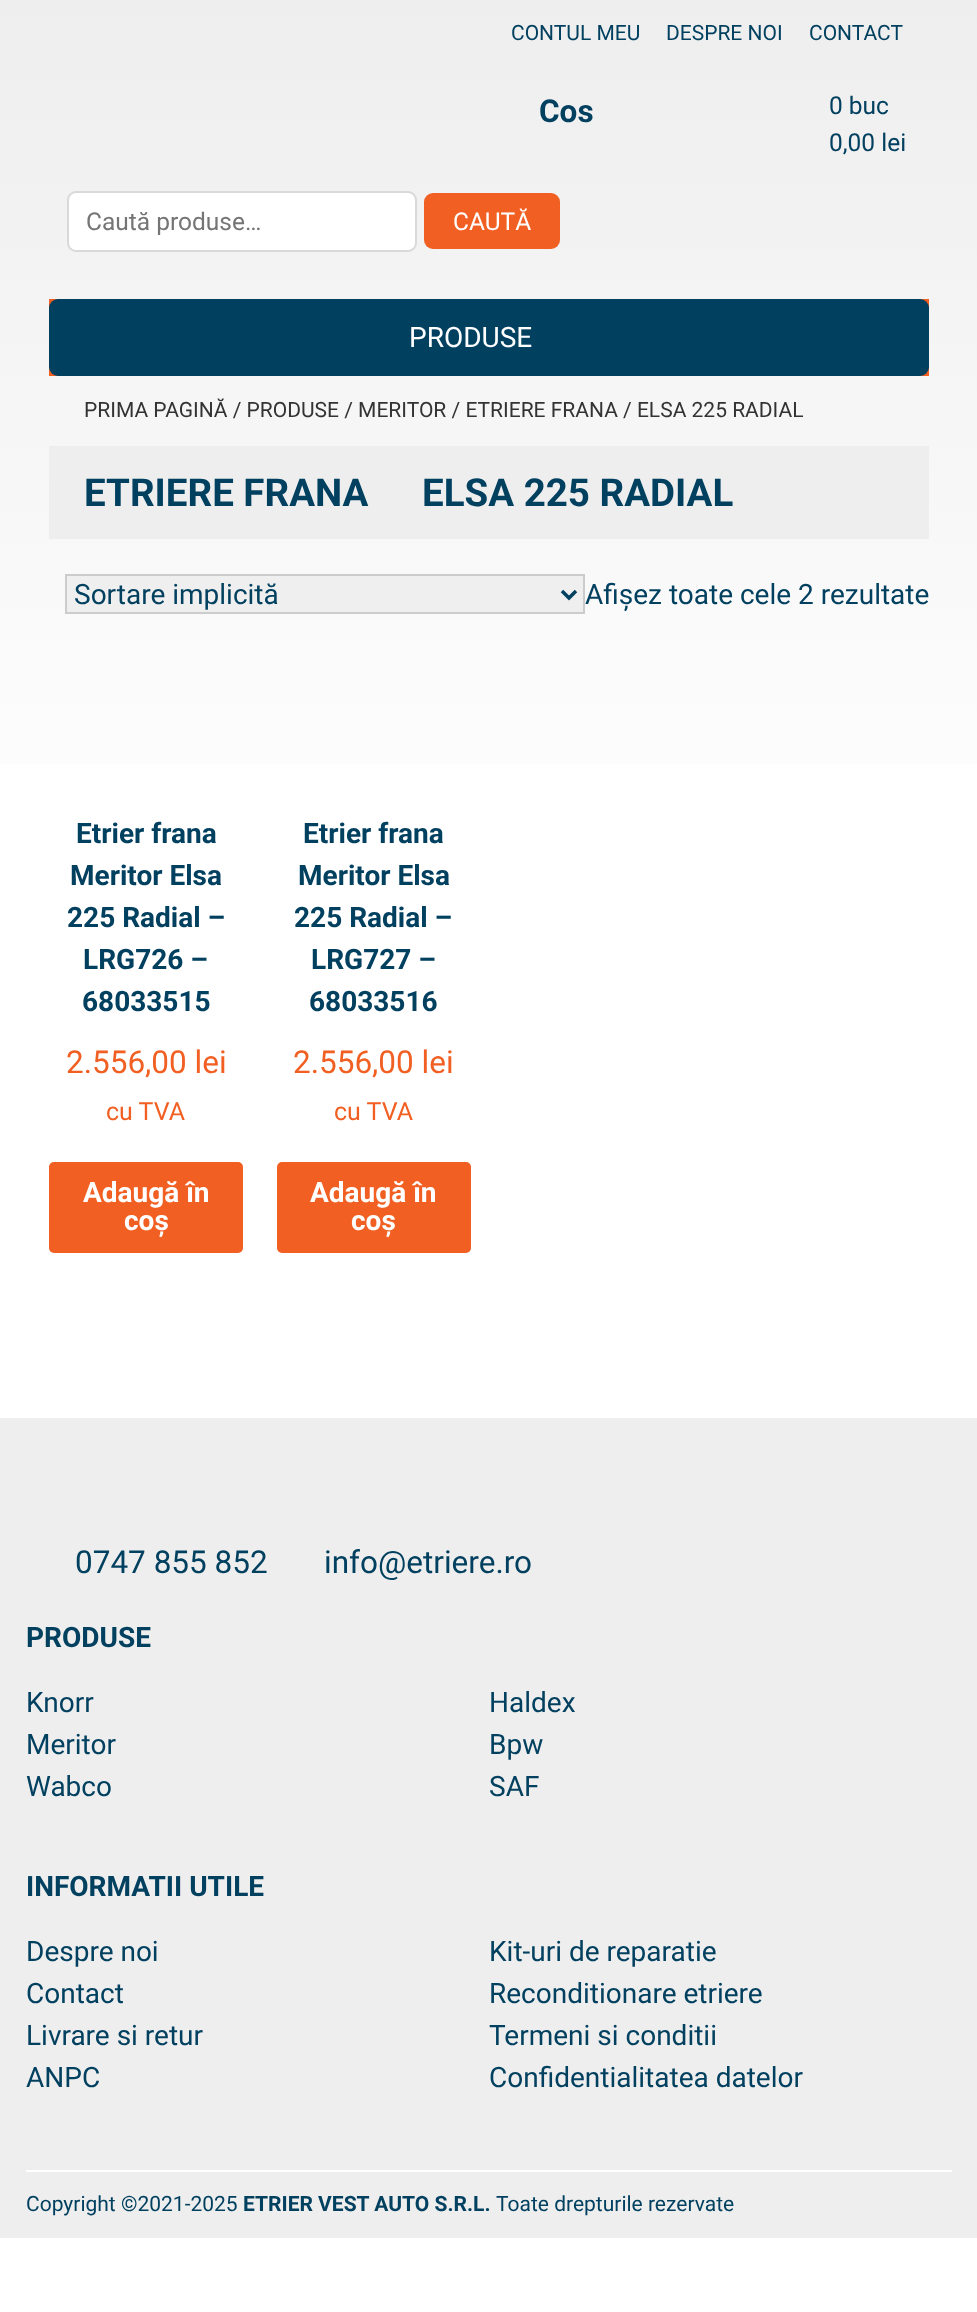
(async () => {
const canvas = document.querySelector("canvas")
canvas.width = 977
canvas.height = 2312
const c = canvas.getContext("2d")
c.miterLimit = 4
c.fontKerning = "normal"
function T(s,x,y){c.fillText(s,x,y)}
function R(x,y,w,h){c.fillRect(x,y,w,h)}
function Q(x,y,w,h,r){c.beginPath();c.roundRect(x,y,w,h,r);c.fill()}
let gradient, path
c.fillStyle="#fff"
R(0,0,977,2312)
gradient = c.createLinearGradient(489,0,489,2238)
gradient.addColorStop(0,"#eee")
gradient.addColorStop(.4,"#fff")
gradient.addColorStop(1,"#fff")
c.fillStyle = gradient
R(0,0,977,764)
c.font="21px Roboto"
c.fillStyle="#024060"
T("CONTUL MEU",511,40)
T("DESPRE NOI",666,40)
T("CONTACT",809,40)
c.font="bold 31.5px Roboto"
T("Cos",539,122)
c.font="24.5px Roboto"
T("0 buc",829,114)
T("0,00 lei",829,151)
c.fillStyle="#fff"
c.beginPath()
c.roundRect(68,192,348,59,8)
c.fill()
c.strokeStyle="#d9d9d9"
c.lineWidth=2
c.stroke()
c.fillStyle="#757575"
T("Caută produse…",86,230)
c.fillStyle="#f15f22"
Q(424,193,136,56,9)
c.fillStyle="#fff"
T("CAUTĂ",453,230)
c.fillStyle="#f15f22"
R(49,299,880,77)
c.fillStyle="#024060"
Q(49,299,880,77,9)
c.font="28px Roboto"
c.fillStyle="#fff"
T("PRODUSE",409,347)
c.font="21px Roboto"
c.fillStyle="#333"
T("PRIMA PAGINĂ / PRODUSE / MERITOR / ETRIERE FRANA / ELSA 225 RADIAL",84,417)
c.fillStyle="#eee"
R(49,446,880,93)
c.font="bold 38.5px Roboto"
c.fillStyle="#024060"
T("ETRIERE FRANA",84,506)
T("ELSA 225 RADIAL",422,506)
c.fillStyle="#efefef"
c.beginPath()
c.rect(66,575,518,38)
c.fill()
c.strokeStyle="#ccc"
c.stroke()
path = new Path2D("M562 591l7 7l7-7")
c.strokeStyle="#024060"
c.lineWidth=3.5
c.stroke(path)
c.font="28px Roboto"
c.fillStyle="#024060"
T("Sortare implicită",74,604)
T("Afișez toate cele 2 rezultate",585,604)
c.font="bold 28px Roboto"
T("Etrier frana",76,843)
T("Meritor Elsa",70,885)
T("225 Radial –",67,927)
T("LRG726 –",83,969)
T("68033515",82,1011)
c.font="31.5px Roboto"
c.fillStyle="#f15f22"
T("2.556,00 lei",66,1073)
c.font="25px Roboto"
T("cu TVA",106,1120)
Q(49,1162,194,91,5)
c.font="bold 28px Roboto"
c.fillStyle="#fff"
T("Adaugă în",83,1202)
T("coș",124,1230)
c.fillStyle="#024060"
T("Etrier frana",303,843)
T("Meritor Elsa",298,885)
T("225 Radial –",294,927)
T("LRG727 –",311,969)
T("68033516",309,1011)
c.font="31.5px Roboto"
c.fillStyle="#f15f22"
T("2.556,00 lei",293,1073)
c.font="25px Roboto"
T("cu TVA",334,1120)
Q(277,1162,194,91,5)
c.font="bold 28px Roboto"
c.fillStyle="#fff"
T("Adaugă în",310,1202)
T("coș",351,1230)
c.fillStyle="#eee"
R(0,1418,977,820)
c.font="31.5px Roboto"
c.fillStyle="#024060"
T("0747 855 852",75,1573)
T("info@etriere.ro",324,1573)
c.font="bold 28px Roboto"
T("PRODUSE",26,1647)
c.font="28px Roboto"
T("Knorr",26,1712)
T("Haldex",489,1712)
T("Meritor",26,1754)
T("Bpw",489,1754)
T("Wabco",26,1796)
T("SAF",489,1796)
c.font="bold 28px Roboto"
T("INFORMATII UTILE",26,1896)
c.font="28px Roboto"
T("Despre noi",26,1961)
T("Kit-uri de reparatie",489,1961)
T("Contact",26,2003)
T("Reconditionare etriere",489,2003)
T("Livrare si retur",26,2045)
T("Termeni si conditii",489,2045)
T("ANPC",26,2087)
T("Confidentialitatea datelor",489,2087)
c.fillStyle="#fff"
R(26,2170,926,2)
c.font="21px Roboto"
c.fillStyle="#024060"
T("Copyright ©2021-2025",26,2211)
c.font="bold 21px Roboto"
T("ETRIER VEST AUTO S.R.L.",243,2211)
c.font="21px Roboto"
T("Toate drepturile rezervate",496,2211)
})()
